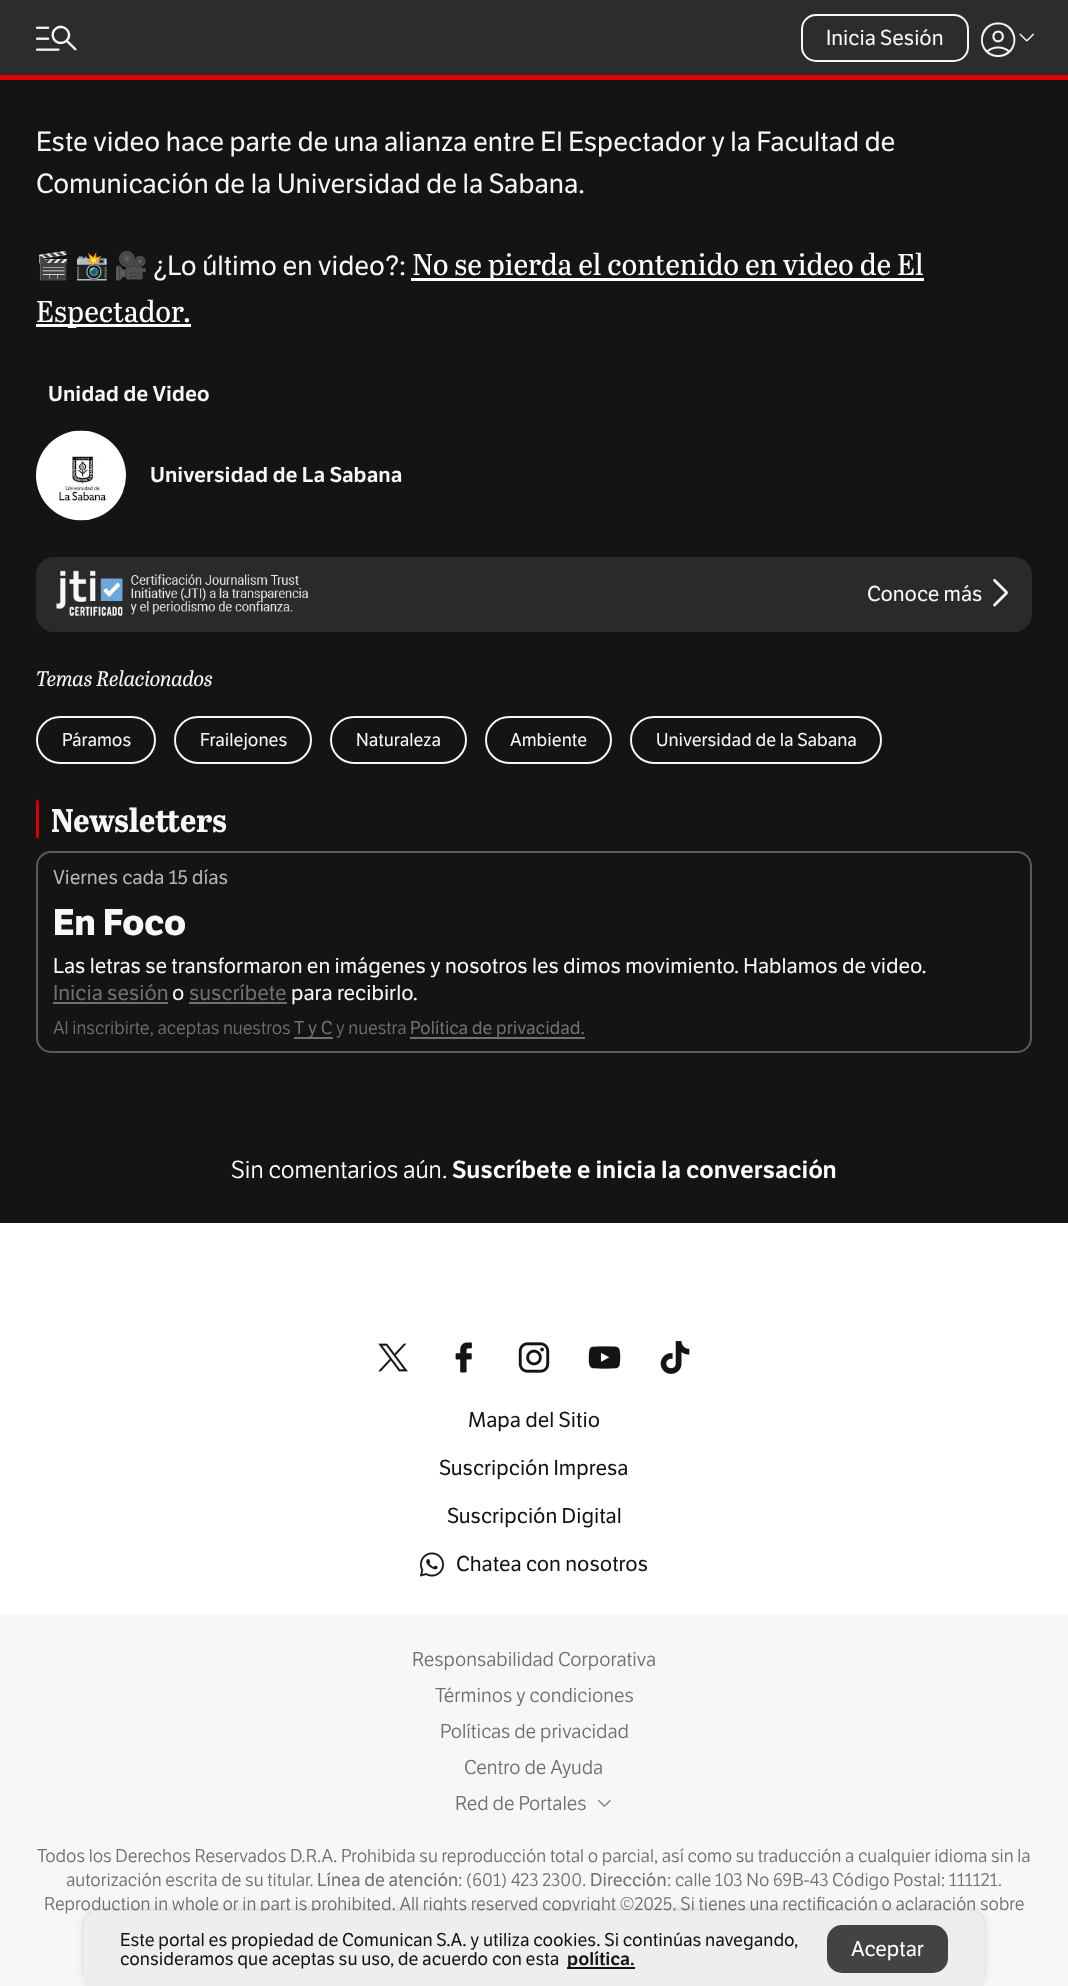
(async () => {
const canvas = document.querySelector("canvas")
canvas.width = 1068
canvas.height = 1986
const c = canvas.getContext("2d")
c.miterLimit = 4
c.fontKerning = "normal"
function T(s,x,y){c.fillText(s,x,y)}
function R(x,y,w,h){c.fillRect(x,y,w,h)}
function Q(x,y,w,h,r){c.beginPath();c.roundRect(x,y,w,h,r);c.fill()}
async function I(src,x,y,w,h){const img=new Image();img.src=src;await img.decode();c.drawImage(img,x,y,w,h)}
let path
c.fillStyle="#141414"
R(0,0,1068,1986)
c.fillStyle="#2c2c2c"
R(0,0,1068,75)
await I("1.png",36,25,41,26)
c.beginPath()
c.roundRect(802,15,166,46,14)
c.strokeStyle="#f7f7f7"
c.lineWidth=2
c.stroke()
c.font="21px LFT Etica"
c.fillStyle="#f7f7f7"
T("Inicia Sesión",826,45)
await I("2.png",981,22,35,36)
await I("3.png",1019,33,16,9)
c.fillStyle="#e00000"
R(0,75,1068,5)
c.font="27px LFT Etica"
c.fillStyle="#f7f7f7"
T("Este video hace parte de una alianza entre El Espectador y la Facultad de",36,151)
T("Comunicación de la Universidad de la Sabana.",36,193)
c.font="27px Noto Color Emoji"
T("🎬",36,275)
T("📸",75,275)
T("🎥",114,275)
c.font="27px LFT Etica"
T("¿Lo último en video?:",153,275)
c.fillStyle="#fff"
R(411,278,513,3)
c.font="30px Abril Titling"
T("No se pierda el contenido en video de El",412,275)
R(36,324,155,3)
T("Espectador.",36,322)
c.font="600 21px LFT Etica"
c.fillStyle="#f7f7f7"
T("Unidad de Video",48,401)
await I("4.png",36,430,90,91)
T("Universidad de La Sabana",150,482)
c.fillStyle="#2a2a2a"
Q(36,557,996,75,18)
await I("5.png",56,570,253,46)
c.font="21px LFT Etica"
c.fillStyle="#f7f7f7"
T("Conoce más",867,601)
await I("6.png",993,578,15,29)
c.font="italic 21px Abril Titling"
T("Temas Relacionados",36,686)
c.beginPath()
c.roundRect(37,717,118,46,23)
c.stroke()
c.font="18px LFT Etica"
T("Páramos",62,746)
c.beginPath()
c.roundRect(175,717,136,46,23)
c.stroke()
T("Frailejones",200,746)
c.beginPath()
c.roundRect(331,717,135,46,23)
c.stroke()
T("Naturaleza",356,746)
c.beginPath()
c.roundRect(486,717,125,46,23)
c.stroke()
T("Ambiente",510,746)
c.beginPath()
c.roundRect(631,717,250,46,23)
c.stroke()
T("Universidad de la Sabana",656,746)
c.fillStyle="#e00000"
path = new Path2D("M36.5 799.5h2l.5 8v23l-.5 8h-2l-.5-3.5v-30.5z")
c.fill(path)
c.font="bold 33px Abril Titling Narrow"
c.fillStyle="#f7f7f7"
T("Newsletters",51,832)
c.beginPath()
c.roundRect(37,852,994,200,14)
c.strokeStyle="#5a5a5a"
c.stroke()
c.font="19.5px LFT Etica"
c.fillStyle="#b5b5b5"
T("Viernes cada 15 días",53,884)
c.font="bold 36px LFT Etica"
c.fillStyle="#f7f7f7"
T("En Foco",53,935)
c.font="21px LFT Etica"
T("Las letras se transformaron en imágenes y nosotros les dimos movimiento. Hablamos de video.",53,973)
c.fillStyle="#707070"
T("Inicia sesión",53,1000)
R(53,1002,115,2)
c.fillStyle="#f7f7f7"
T("o",172,1000)
c.fillStyle="#707070"
T("suscríbete",189,1000)
R(189,1002,98,2)
c.fillStyle="#f7f7f7"
T("para recibirlo.",291,1000)
c.font="18px 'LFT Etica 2'"
c.fillStyle="#707070"
T("Al inscribirte, aceptas nuestros",53,1034)
R(294,1037,39,2)
c.font="18px LFT Etica"
T("T y C",294,1034)
c.font="18px 'LFT Etica 2'"
T("y nuestra",336,1034)
R(410,1037,175,2)
c.font="18px LFT Etica"
T("Política de privacidad.",410,1034)
c.font="24px 'LFT Etica 2'"
c.fillStyle="#fff"
T("Sin comentarios aún.",231,1178)
c.font="600 24px LFT Etica"
T("Suscríbete e inicia la conversación",452,1178)
R(0,1223,1068,391)
await I("7.png",378,1343,30,29)
await I("8.png",455,1342,17,31)
await I("9.png",518,1342,32,31)
await I("10.png",588,1346,33,23)
await I("11.png",660,1341,30,33)
c.font="21px LFT Etica"
c.fillStyle="#141414"
T("Mapa del Sitio",468,1427)
T("Suscripción Impresa",439,1475)
T("Suscripción Digital",447,1523)
await I("12.png",420,1552,24,25)
T("Chatea con nosotros",456,1571)
c.fillStyle="#f7f7f7"
R(0,1614,1068,372)
c.font="19.5px 'LFT Etica 2'"
c.fillStyle="#707070"
T("Responsabilidad Corporativa",412,1666)
T("Términos y condiciones",435,1702)
T("Políticas de privacidad",440,1738)
T("Centro de Ayuda",464,1774)
T("Red de Portales",455,1810)
await I("13.png",598,1800,13,7)
c.font="18px 'LFT Etica 2'"
T("Todos los Derechos Reservados D.R.A. Prohibida su reproducción total o parcial, así como su traducción a cualquier idioma sin la",37,1862)
T("autorización escrita de su titular.",66,1886)
c.font="18px LFT Etica"
T("Línea de atención",317,1886)
c.font="18px 'LFT Etica 2'"
T(": (601) 423 2300.",458,1886)
c.font="18px LFT Etica"
T("Dirección",590,1886)
c.font="18px 'LFT Etica 2'"
T(": calle 103 No 69B-43 Código Postal: 111121.",667,1886)
T("Reproduction in whole or in part is prohibited. All rights reserved copyright ©2025. Si tienes una rectificación o aclaración sobre",44,1910)
c.fillStyle="#00000029"
c.filter="blur(4.5px)"
c.beginPath()
c.roundRect(84,1910,900,75,15)
c.fill()
c.filter="none"
c.fillStyle="#eee"
c.beginPath()
c.roundRect(84,1911,900,75,[15,15,0,0])
c.fill()
c.font="18px LFT Etica"
c.fillStyle="#141414"
T("Este portal es propiedad de Comunican S.A. y utiliza cookies. Si continúas navegando,",120,1946)
T("consideramos que aceptas su uso, de acuerdo con esta",120,1965)
R(567,1967,68,2)
c.font="600 18px LFT Etica"
T("política.",567,1965)
c.fillStyle="#434343"
Q(827,1925,121,48,15)
c.font="21px LFT Etica"
c.fillStyle="#fff"
T("Aceptar",851,1956)
})()
